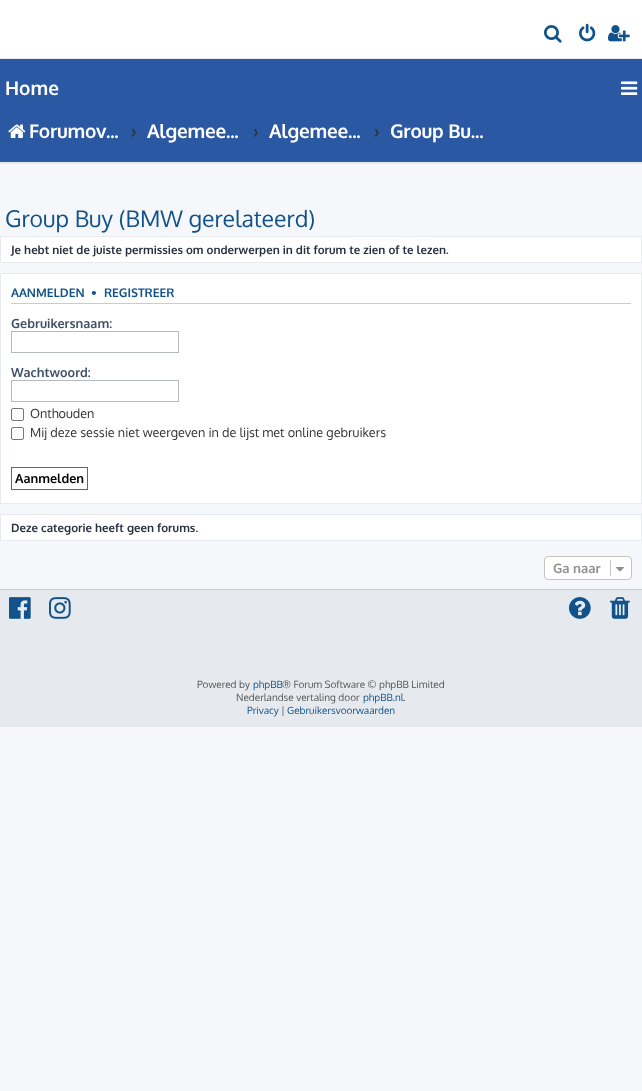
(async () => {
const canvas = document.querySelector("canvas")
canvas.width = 642
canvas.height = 1091
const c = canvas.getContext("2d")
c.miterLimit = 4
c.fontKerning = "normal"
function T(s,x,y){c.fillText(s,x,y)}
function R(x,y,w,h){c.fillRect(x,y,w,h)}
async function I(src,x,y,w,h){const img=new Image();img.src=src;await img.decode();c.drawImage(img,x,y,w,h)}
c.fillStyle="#f5f7fa"
R(0,0,642,1091)
c.fillStyle="#fff"
R(0,0,642,58)
c.fillStyle="#e6e9ed"
R(0,58,642,1)
await I("1.png",544,25,18,18)
await I("2.png",579,23,17,19)
await I("3.png",608,25,22,17)
c.fillStyle="#2b58a3"
R(0,59,642,103)
c.fillStyle="#e6e9ed"
R(0,162,642,2)
c.font="bold 19px Oxygen"
c.fillStyle="#fff"
T("Home",5,95)
await I("4.png",8,124,18,14)
c.letterSpacing="-0.25px"
T("Forumov...",29,138)
c.letterSpacing="0px"
c.fillStyle="#333"
T("›",131,138)
c.letterSpacing="-0.25px"
c.fillStyle="#fff"
T("Algemee...",147,138)
c.letterSpacing="0px"
c.fillStyle="#333"
T("›",253,138)
c.letterSpacing="-0.25px"
c.fillStyle="#fff"
T("Algemee...",269,138)
c.letterSpacing="0px"
c.fillStyle="#333"
T("›",374,138)
c.letterSpacing="-0.25px"
c.fillStyle="#fff"
T("Group Bu...",390,138)
await I("5.png",621,81,17,14)
c.letterSpacing="0px"
c.font="23px Oxygen"
c.fillStyle="#105289"
T("Group Buy (BMW gerelateerd)",5,227)
c.fillStyle="#fff"
c.beginPath()
c.rect(.5,236.5,641,26)
c.fill()
c.strokeStyle="#e6e9ed"
c.stroke()
c.font="bold 11.5px Oxygen"
c.fillStyle="#28313f"
T("Je hebt niet de juiste permissies om onderwerpen in dit forum te zien of te lezen.",11,254)
c.fillStyle="#fff"
c.beginPath()
c.rect(.5,273.5,641,230)
c.fill()
c.stroke()
c.fillStyle="#ccc"
R(11,303,620,1)
c.font="bold 12px Oxygen"
c.fillStyle="#105289"
T("AANMELDEN",11,297)
c.fillStyle="#115098"
T("•",91,297)
c.fillStyle="#105289"
T("REGISTREER",104,297)
c.font="bold 12.65px Oxygen"
c.fillStyle="#425067"
T("Gebruikersnaam:",11,328)
c.strokeStyle="#b4bac0"
c.strokeRect(11.5,331.5,167,21)
T("Wachtwoord:",11,377)
c.strokeRect(11.5,380.5,167,21)
c.beginPath()
c.roundRect(11.5,408.5,12,12,1.5)
c.strokeStyle="#767676"
c.stroke()
c.font="12.65px Oxygen"
c.fillStyle="#333"
T("Onthouden",30,418)
c.beginPath()
c.roundRect(11.5,427.5,12,12,1.5)
c.stroke()
T("Mij deze sessie niet weergeven in de lijst met online gebruikers",30,437)
c.strokeStyle="#666"
c.strokeRect(11.5,467.5,76,22)
c.font="bold 12.65px Oxygen"
c.fillStyle="#000"
T("Aanmelden",15,483)
c.fillStyle="#fff"
c.beginPath()
c.rect(.5,514.5,641,26)
c.fill()
c.strokeStyle="#e6e9ed"
c.stroke()
c.font="bold 11.5px Oxygen"
c.fillStyle="#28313f"
T("Deze categorie heeft geen forums.",11,532)
c.fillStyle="#fff"
c.beginPath()
c.roundRect(544.5,556.5,87,23,3.5)
c.fill()
c.strokeStyle="#c7c3bf"
c.stroke()
c.font="bold 13px Oxygen"
c.fillStyle="#8f8f8f"
T("Ga naar",553,573)
c.fillStyle="#c7c3bf"
R(610,560,1,16)
await I("6.png",616,567,8,5)
c.fillStyle="#e6e9ed"
R(0,590,642,137)
c.fillStyle="#ccc"
R(0,589,642,1)
await I("7.png",9,597,22,22)
await I("8.png",49,597,22,22)
await I("9.png",569,597,22,22)
await I("10.png",610,597,20,22)
c.font="10px Oxygen"
c.fillStyle="#555"
T("Powered by",197,688)
c.fillStyle="#105289"
T("phpBB",253,688)
c.fillStyle="#555"
T("® Forum Software © phpBB Limited",282,688)
T("Nederlandse vertaling door",236,701)
c.fillStyle="#105289"
T("phpBB.nl",363,701)
c.fillStyle="#555"
T(".",403,701)
c.fillStyle="#105289"
T("Privacy",247,714)
c.fillStyle="#555"
T("|",281,714)
c.fillStyle="#105289"
T("Gebruikersvoorwaarden",287,714)
})()
